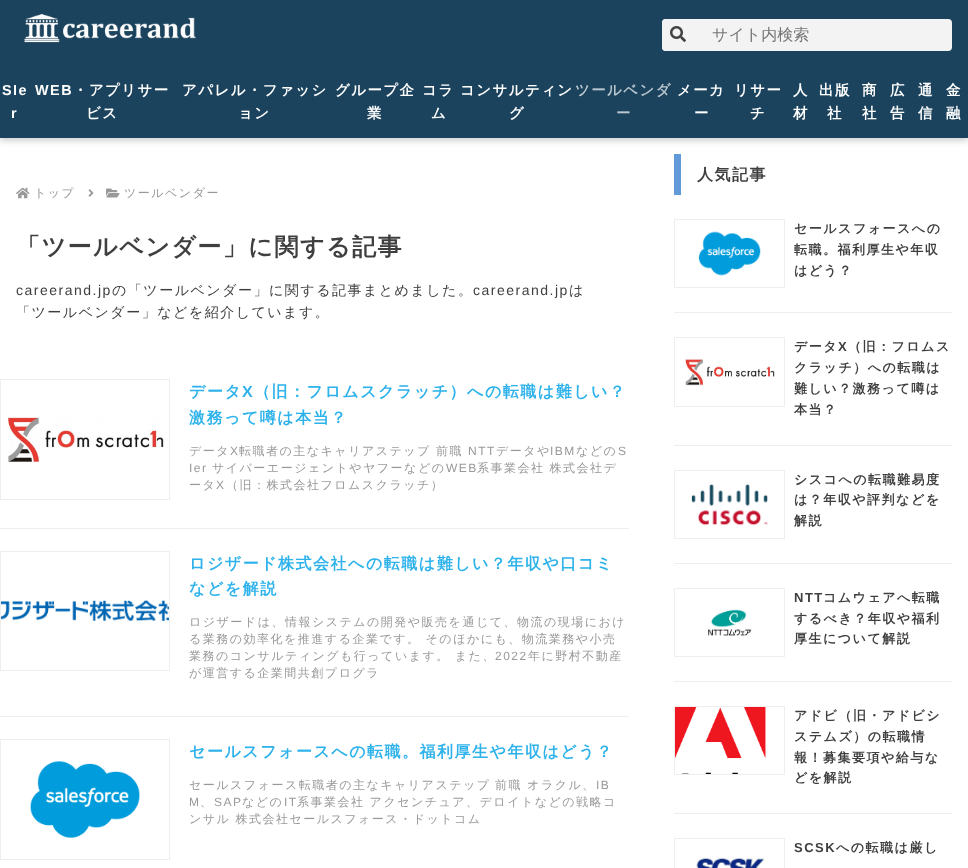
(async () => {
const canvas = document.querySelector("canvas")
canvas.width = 968
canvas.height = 868
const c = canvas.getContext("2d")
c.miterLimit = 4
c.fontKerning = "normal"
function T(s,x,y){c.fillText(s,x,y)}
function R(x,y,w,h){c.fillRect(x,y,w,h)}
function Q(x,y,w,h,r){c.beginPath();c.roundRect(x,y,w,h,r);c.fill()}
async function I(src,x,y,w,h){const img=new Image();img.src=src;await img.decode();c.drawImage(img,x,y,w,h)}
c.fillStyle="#fff"
R(0,0,968,868)
c.fillStyle="#0000002e"
c.filter="blur(3px)"
c.beginPath()
c.rect(0,3,968,138)
c.fill()
c.filter="none"
c.fillStyle="#1b435d"
R(0,0,968,138)
await I("1.png",24,14,172,29)
c.fillStyle="#f3f3f3"
Q(662,19,290,32,4)
Q(662,19,32,32,4)
await I("2.png",670,26,16,16)
c.font="500 16px WenQuanYi Zen Hei"
c.fillStyle="#757575"
T("サイト内検索",712,40)
c.letterSpacing="1.5px"
c.font="bold 14.4px Liberation Sans"
c.fillStyle="#fff"
T("SIe",2,95)
T("r",11,118)
T("WEB",35,95)
c.font="bold 14.4px WenQuanYi Zen Hei"
T("・アプリサー",73,95)
T("ビス",86,118)
T("アパレル・ファッシ",182,95)
T("ョン",238,118)
T("グループ企",335,95)
T("業",367,118)
T("コラ",422,95)
T("ム",431,118)
T("コンサルティン",460,95)
T("グ",509,118)
c.fillStyle="#bbc7ce"
T("ツールベンダ",575,95)
T("ー",616,118)
c.fillStyle="#fff"
T("メーカ",677,95)
T("ー",694,118)
T("リサー",734,95)
T("チ",750,118)
T("人",793,95)
T("材",793,118)
T("出版",819,95)
T("社",827,118)
T("商",862,95)
T("社",862,118)
T("広",890,95)
T("告",890,118)
T("通",918,95)
T("信",918,118)
T("金",946,95)
T("融",946,118)
await I("3.png",16,187,14,12)
c.font="500 12px WenQuanYi Zen Hei"
c.fillStyle="#999"
T("トップ",34,197)
await I("4.png",88,189,6,8)
await I("5.png",106,188,14,10)
T("ツールベンダー",124,197)
c.font="bold 24px WenQuanYi Zen Hei"
c.fillStyle="#3f3f3f"
T("「ツールベンダー」に関する記事",16,255)
c.font="14px Liberation Sans"
T("careerand.jp",16,295)
c.font="500 14px WenQuanYi Zen Hei"
T("の「ツールベンダー」に関する記事まとめました。",112,295)
c.font="14px Liberation Sans"
T("careerand.jp",473,295)
c.font="500 14px WenQuanYi Zen Hei"
T("は",569,295)
T("「ツールベンダー」などを紹介しています。",16,317)
c.fillStyle="#eee"
R(0,528,629,1)
await I("6.png",7,417,157,46)
c.strokeStyle="#eee"
c.strokeRect(.5,379.5,169,120)
c.font="bold 16px WenQuanYi Zen Hei"
c.fillStyle="#2db2eb"
T("データ",189,397)
c.font="bold 16px Liberation Sans"
T("X",242,397)
c.font="bold 16px WenQuanYi Zen Hei"
T("（旧：フロムスクラッチ）への転職は難しい？",254,397)
T("激務って噂は本当？",189,423)
c.font="500 12px WenQuanYi Zen Hei"
c.fillStyle="#999"
T("データ",189,455)
c.font="12px Liberation Sans"
T("X",230,455)
c.font="500 12px WenQuanYi Zen Hei"
T("転職者の主なキャリアステップ 前職",239,455)
c.font="12px Liberation Sans"
T("NTT",468,455)
c.font="500 12px WenQuanYi Zen Hei"
T("データや",496,455)
c.font="12px Liberation Sans"
T("IBM",550,455)
c.font="500 12px WenQuanYi Zen Hei"
T("などの",576,455)
c.font="12px Liberation Sans"
T("S",618,455)
T("Ier",189,472)
c.font="500 12px WenQuanYi Zen Hei"
T("サイバーエージェントやヤフーなどの",212,472)
c.font="12px Liberation Sans"
T("WEB",446,472)
c.font="500 12px WenQuanYi Zen Hei"
T("系事業会社 株式会社デ",477,472)
T("ータ",189,489)
c.font="12px Liberation Sans"
T("X",216,489)
c.font="500 12px WenQuanYi Zen Hei"
T("（旧：株式会社フロムスクラッチ）",226,489)
c.fillStyle="#eee"
R(0,716,629,1)
await I("7.png",1,600,168,21)
c.strokeRect(.5,551.5,169,119)
c.font="bold 16px WenQuanYi Zen Hei"
c.fillStyle="#2db2eb"
T("ロジザード株式会社への転職は難しい？年収や口コミ",189,569)
T("などを解説",189,594)
c.font="500 12px WenQuanYi Zen Hei"
c.fillStyle="#999"
T("ロジザードは、情報システムの開発や販売を通じて、物流の現場におけ",189,626)
T("る業務の効率化を推進する企業です。 そのほかにも、物流業務や小売",189,643)
T("業務のコンサルティングも行っています。 また、",189,660)
c.font="12px Liberation Sans"
T("2022",495,660)
c.font="500 12px WenQuanYi Zen Hei"
T("年に野村不動産",528,660)
T("が運営する企業間共創プログラ",189,677)
await I("8.png",30,761,110,77)
c.strokeRect(.5,739.5,169,120)
c.font="bold 16px WenQuanYi Zen Hei"
c.fillStyle="#2db2eb"
T("セールスフォースへの転職。福利厚生や年収はどう？",189,757)
c.font="500 12px WenQuanYi Zen Hei"
c.fillStyle="#999"
T("セールスフォース転職者の主なキャリアステップ",189,789)
T("前職 オラクル、",495,789)
c.font="12px Liberation Sans"
T("IB",596,789)
T("M",189,806)
T("SAP",214,806)
c.font="500 12px WenQuanYi Zen Hei"
T("などの",242,806)
c.font="12px Liberation Sans"
T("IT",284,806)
c.font="500 12px WenQuanYi Zen Hei"
T("系事業会社 アクセンチュア、デロイトなどの戦略コ",297,806)
T("、",200,806)
T("ンサル 株式会社セールスフォース・ドットコム",189,823)
c.fillStyle="#6299d8"
R(674,154,7,41)
c.font="bold 16px WenQuanYi Zen Hei"
c.fillStyle="#3f3f3f"
T("人気記事",697,180)
c.fillStyle="#eee"
R(674,312,278,1)
await I("9.png",698,231,63,45)
c.strokeRect(674.5,219.5,110,68)
c.font="bold 13px WenQuanYi Zen Hei"
c.fillStyle="#3f3f3f"
T("セールスフォースへの",794,233)
T("転職。福利厚生や年収",794,254)
T("はどう？",794,275)
c.fillStyle="#eee"
R(674,445,278,1)
await I("10.png",685,359,90,27)
c.strokeRect(674.5,337.5,110,69)
c.fillStyle="#3f3f3f"
T("データ",794,351)
c.font="bold 13px Liberation Sans"
T("X",838,351)
c.font="bold 13px WenQuanYi Zen Hei"
T("（旧：フロムス",848,351)
T("クラッチ）への転職は",794,372)
T("難しい？激務って噂は",794,393)
T("本当？",794,414)
c.fillStyle="#eee"
R(674,563,278,1)
await I("11.png",691,484,77,42)
c.strokeRect(674.5,470.5,110,68)
c.fillStyle="#3f3f3f"
T("シスコへの転職難易度",794,484)
T("は？年収や評判などを",794,504)
T("解説",794,525)
c.fillStyle="#eee"
R(674,681,278,1)
await I("12.png",708,609,44,27)
c.strokeRect(674.5,588.5,110,68)
c.font="bold 13px Liberation Sans"
c.fillStyle="#3f3f3f"
T("NTT",794,602)
c.font="bold 13px WenQuanYi Zen Hei"
T("コムウェアへ転職",823,602)
T("するべき？年収や福利",794,623)
T("厚生について解説",794,643)
c.fillStyle="#eee"
R(674,813,278,1)
await I("13.png",675,707,91,67)
c.strokeRect(674.5,706.5,110,68)
c.fillStyle="#3f3f3f"
T("アドビ（旧・アドビシ",794,720)
T("ステムズ）の転職情",794,741)
T("報！募集要項や給与な",794,762)
T("どを解説",794,782)
await I("14.png",696,857,69,11)
c.strokeRect(674.5,838.5,110,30)
c.font="bold 13px Liberation Sans"
T("SCSK",794,852)
c.font="bold 13px WenQuanYi Zen Hei"
T("への転職は厳し",836,852)
})()
